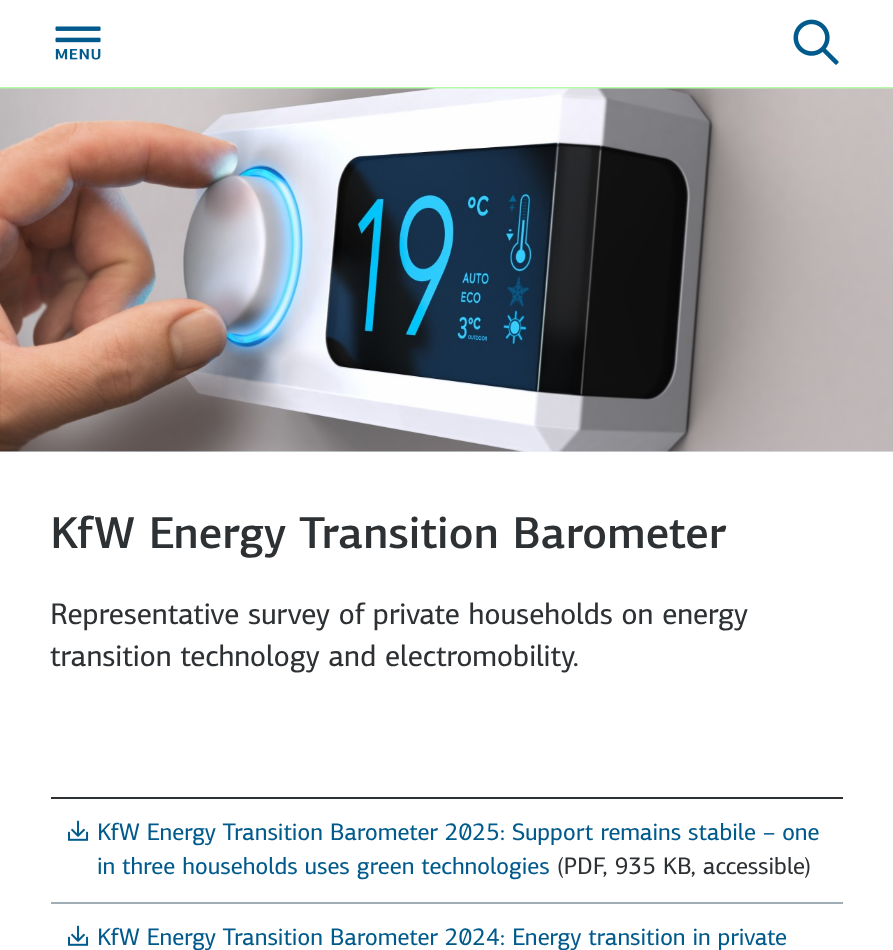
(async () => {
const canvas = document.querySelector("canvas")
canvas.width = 893
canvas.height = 950
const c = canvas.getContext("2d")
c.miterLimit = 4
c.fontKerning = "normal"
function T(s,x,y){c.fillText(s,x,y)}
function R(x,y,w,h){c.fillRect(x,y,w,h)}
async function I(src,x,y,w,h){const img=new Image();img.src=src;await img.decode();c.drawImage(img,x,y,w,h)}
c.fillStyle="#fff"
R(0,0,893,950)
await I("1.png",55,26,46,34)
await I("2.png",793,19,46,46)
c.fillStyle="#b7f9aa"
R(0,87,893,2)
c.fillStyle="#e9f5fb"
R(0,451,893,1)
await I("3.png",0,88,893,364)
c.font="500 45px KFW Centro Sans"
c.fillStyle="#2d3134"
T("KfW Energy Transition Barometer",50,548)
c.font="30px KFW Centro Sans"
T("Representative survey of private households on energy",50,624)
T("transition technology and electromobility.",50,666)
R(51,797,792,2)
c.fillStyle="#a1adb5"
R(51,902,792,2)
await I("4.png",68,820,21,21)
c.font="24px KFW Centro Sans"
c.fillStyle="#005a8c"
T("KfW Energy Transition Barometer 2025: Support remains stabile – one",97,840)
T("in three households uses green technologies",97,874)
c.fillStyle="#2d3134"
T("(PDF, 935 KB, accessible)",557,874)
await I("4.png",68,925,21,21)
c.fillStyle="#005a8c"
T("KfW Energy Transition Barometer 2024: Energy transition in private",97,945)
})()
